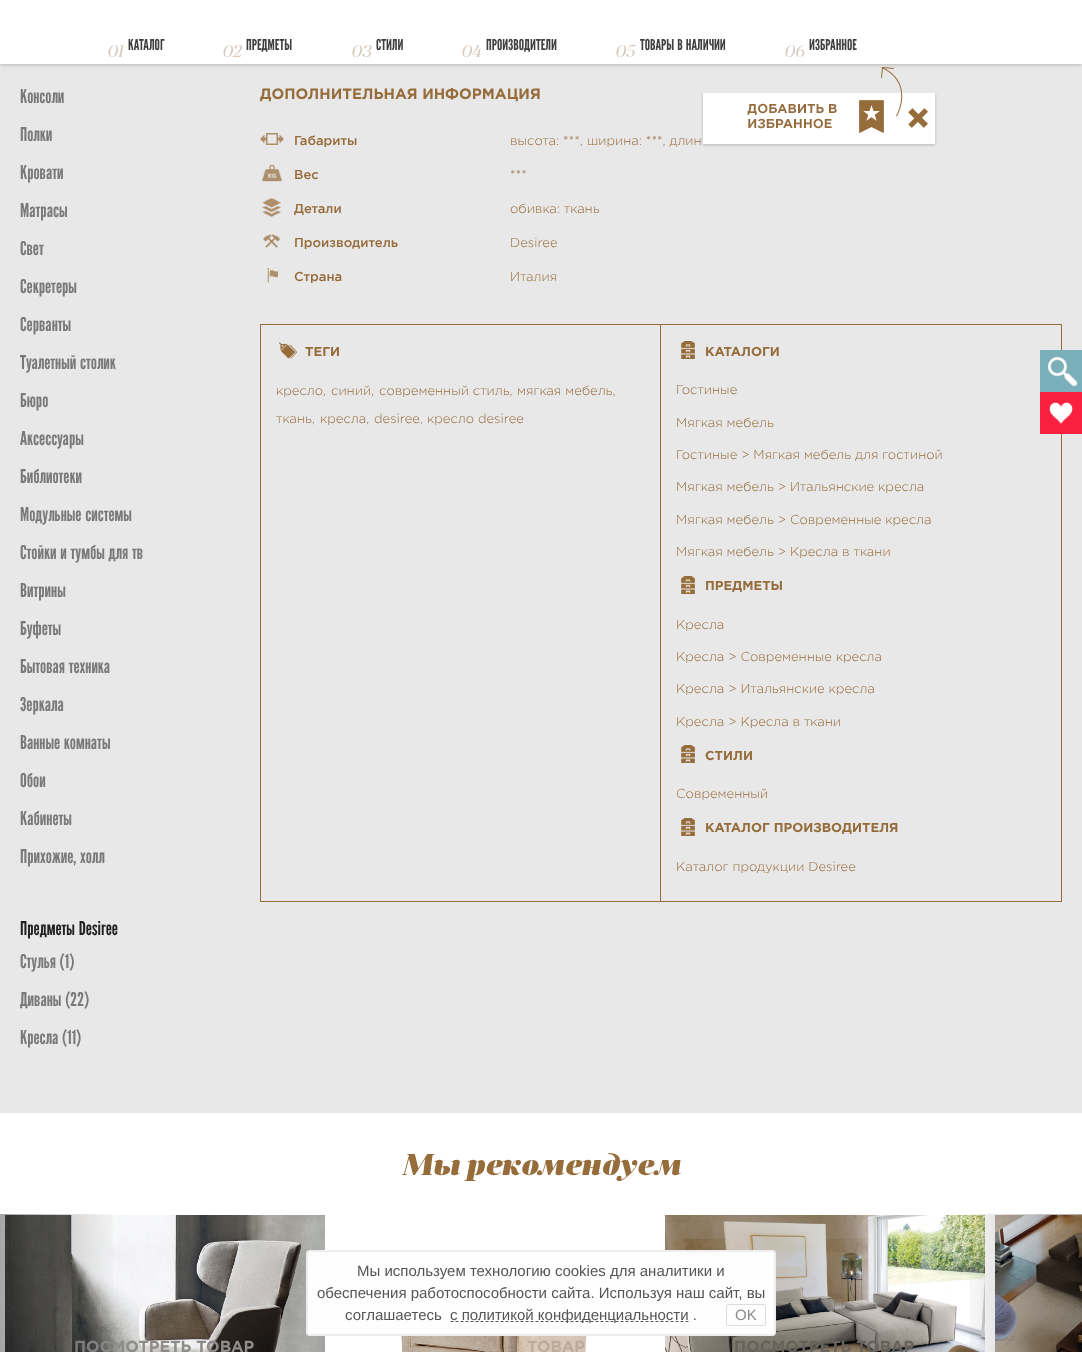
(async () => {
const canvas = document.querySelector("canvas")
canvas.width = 1082
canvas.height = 1352
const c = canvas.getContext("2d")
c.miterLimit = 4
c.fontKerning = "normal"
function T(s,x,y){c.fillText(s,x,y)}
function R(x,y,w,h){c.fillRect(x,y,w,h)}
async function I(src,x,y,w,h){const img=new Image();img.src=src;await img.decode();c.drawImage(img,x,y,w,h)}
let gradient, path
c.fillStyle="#fff"
R(0,0,1082,1352)
c.fillStyle="#e8e8e8"
R(0,64,1082,1049)
c.fillStyle="#0000004d"
c.filter="blur(2.5px)"
c.beginPath()
c.rect(0,0,1082,64)
c.fill()
c.filter="none"
c.fillStyle="#fff"
R(0,0,1082,64)
c.font="italic 17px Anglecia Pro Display"
c.fillStyle="#d8cbbd"
T("01",106,57)
c.font="15px League Gothic"
c.fillStyle="#403f3f"
T("КАТАЛОГ",128,50)
c.font="italic 17px Anglecia Pro Display"
c.fillStyle="#d8cbbd"
T("02",221,57)
c.font="15px League Gothic"
c.fillStyle="#403f3f"
T("ПРЕДМЕТЫ",246,50)
c.font="italic 17px Anglecia Pro Display"
c.fillStyle="#d8cbbd"
T("03",350,57)
c.font="15px League Gothic"
c.fillStyle="#403f3f"
T("СТИЛИ",376,50)
c.font="italic 17px Anglecia Pro Display"
c.fillStyle="#d8cbbd"
T("04",460,57)
c.font="15px League Gothic"
c.fillStyle="#403f3f"
T("ПРОИЗВОДИТЕЛИ",486,50)
c.font="italic 17px Anglecia Pro Display"
c.fillStyle="#d8cbbd"
T("05",614,57)
c.font="15px League Gothic"
c.fillStyle="#403f3f"
T("ТОВАРЫ В НАЛИЧИИ",640,50)
c.font="italic 17px Anglecia Pro Display"
c.fillStyle="#d8cbbd"
T("06",783,57)
c.font="15px League Gothic"
c.fillStyle="#403f3f"
T("ИЗБРАННОЕ",809,50)
c.font="300 13px Gotham"
c.fillStyle="#966c3b"
T("высота: ***, ширина: ***, длин",510,145)
await I("1.png",701,67,236,80)
await I("2.png",908,108,20,20)
c.font="19px League Gothic"
c.fillStyle="#797979"
T("Консоли",20,103)
T("Полки",20,141)
T("Кровати",20,179)
T("Матрасы",20,217)
T("Свет",20,255)
T("Секретеры",20,293)
T("Серванты",20,331)
T("Туалетный столик",20,369)
T("Бюро",20,407)
T("Aксессуары",20,445)
T("Библиотеки",20,483)
T("Модульные системы",20,521)
T("Стойки и тумбы для тв",20,559)
T("Витрины",20,597)
T("Буфеты",20,635)
T("Бытовая техника",20,673)
T("Зеркала",20,711)
T("Ванные комнаты",20,749)
T("Обои",20,787)
T("Кабинеты",20,825)
T("Прихожие, холл",20,863)
c.fillStyle="#222"
T("Предметы Desiree",20,935)
c.fillStyle="#797979"
T("Стулья (1)",20,968)
T("Диваны (22)",20,1006)
T("Кресла (11)",20,1044)
c.font="bold 15px Gotham"
c.fillStyle="#966c3b"
T("ДОПОЛНИТЕЛЬНАЯ ИНФОРМАЦИЯ",260,99)
await I("3.png",260,133,24,12)
c.font="500 13px Gotham"
T("Габариты",294,145)
await I("4.png",262,164,20,18)
T("Вес",294,179)
c.font="300 13px Gotham"
T("***",510,179)
await I("5.png",262,198,19,19)
c.font="500 13px Gotham"
T("Детали",294,213)
c.font="300 13px Gotham"
T("обивка: ткань",510,213)
await I("6.png",263,234,18,14)
c.font="500 13px Gotham"
T("Производитель",294,247)
c.font="300 13px Gotham"
T("Desiree",510,247)
await I("7.png",267,268,11,15)
c.font="500 13px Gotham"
T("Страна",294,281)
c.font="300 13px Gotham"
T("Италия",510,281)
R(660,324,402,1)
R(1061,324,1,578)
R(660,901,402,1)
R(660,324,1,578)
R(260,324,401,1)
R(260,901,401,1)
R(260,324,1,578)
await I("8.png",279,342,18,17)
c.font="bold 13px Gotham"
T("ТЕГИ",305,356)
c.font="300 13px Gotham"
T("кресло,",276,395)
T("синий,",331,395)
T("современный стиль,",379,395)
T("мягкая мебель,",517,395)
T("ткань,",276,423)
T("кресла,",320,423)
T("desiree,",374,423)
T("кресло desiree",427,423)
await I("9.png",681,341,14,18)
c.font="bold 13px Gotham"
T("КАТАЛОГИ",705,356)
c.font="300 13px Gotham"
T("Гостиные",676,394)
T("Мягкая мебель",676,427)
T("Гостиные > Мягкая мебель для гостиной",676,459)
T("Мягкая мебель > Итальянские кресла",676,491)
T("Мягкая мебель > Современные кресла",676,524)
T("Мягкая мебель > Кресла в ткани",676,556)
await I("9.png",681,576,14,18)
c.font="bold 13px Gotham"
T("ПРЕДМЕТЫ",705,590)
c.font="300 13px Gotham"
T("Кресла",676,629)
T("Кресла > Современные кресла",676,661)
T("Кресла > Итальянские кресла",676,693)
T("Кресла > Кресла в ткани",676,726)
await I("9.png",681,745,14,18)
c.font="bold 13px Gotham"
T("СТИЛИ",705,760)
c.font="300 13px Gotham"
T("Современный",676,798)
await I("9.png",681,818,14,18)
c.font="bold 13px Gotham"
T("КАТАЛОГ ПРОИЗВОДИТЕЛЯ",705,832)
c.font="300 13px Gotham"
T("Каталог продукции Desiree",676,871)
c.fillStyle="#7bafb9"
R(1040,350,42,42)
await I("10.png",1048,356,30,31)
c.fillStyle="#fa2140"
R(1040,392,42,42)
await I("11.png",1049,402,24,22)
c.font="italic 900 30px Anglecia Pro Display"
c.fillStyle="#966c3b"
T("Мы рекомендуем",402,1175)
await I("12.png",5,1215,320,137)
c.font="bold 16px Gotham"
c.fillStyle="#8d8c8a"
T("ПОСМОТРЕТЬ ТОВАР",74,1352)
gradient = c.createLinearGradient(0,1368,120,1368)
gradient.addColorStop(0,"#00000059")
gradient.addColorStop(1,"#00000000")
c.fillStyle = gradient
R(0,1214,113,138)
await I("13.png",335,1215,320,137)
c.fillStyle="#bdac9b"
T("ТОВАР",527,1352)
await I("14.png",665,1215,320,137)
c.fillStyle="#68635a"
T("ПОСМОТРЕТЬ ТОВАР",734,1352)
await I("15.png",995,1215,87,137)
gradient = c.createLinearGradient(962,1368,1082,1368)
gradient.addColorStop(0,"#00000000")
gradient.addColorStop(1,"#00000059")
c.fillStyle = gradient
R(969,1214,113,138)
c.fillStyle="#fefefe"
c.beginPath()
c.roundRect(307,1251,468,84,3)
c.fill()
c.strokeStyle="#eee"
c.lineWidth=2
c.stroke()
c.font="15px Liberation Sans"
c.fillStyle="#555"
T("Мы используем технологию cookies для аналитики и",357,1276)
T("обеспечения работоспособности сайта. Используя наш сайт, вы",317,1298)
T("соглашаетесь",345,1320)
path = new Path2D("M450.5 1321.5h238.5")
c.strokeStyle="#555"
c.lineWidth=1
c.setLineDash([3,2])
c.stroke(path)
T("с политикой конфиденциальности .",450,1320)
c.beginPath()
c.roundRect(726.5,1304.5,39,21,1.5)
c.strokeStyle="#ddd"
c.setLineDash([])
c.stroke()
c.fillStyle="#8d8c8a"
T("OK",735,1320)
})()
